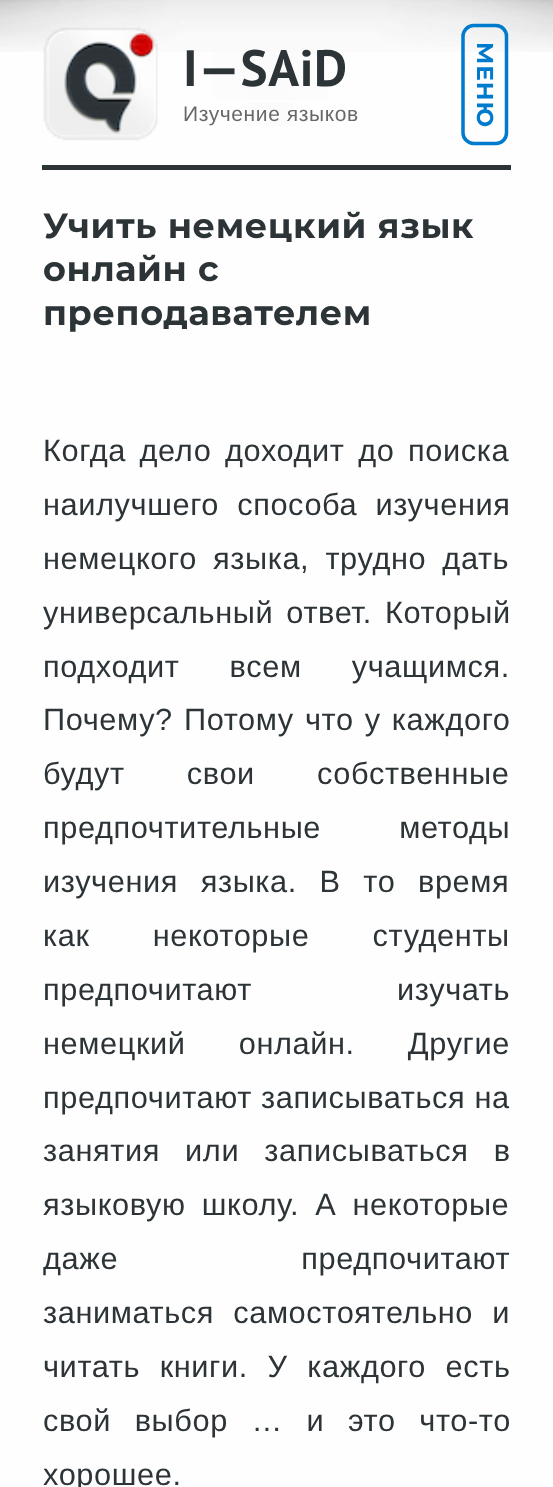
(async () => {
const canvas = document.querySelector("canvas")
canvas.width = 553
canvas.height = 1487
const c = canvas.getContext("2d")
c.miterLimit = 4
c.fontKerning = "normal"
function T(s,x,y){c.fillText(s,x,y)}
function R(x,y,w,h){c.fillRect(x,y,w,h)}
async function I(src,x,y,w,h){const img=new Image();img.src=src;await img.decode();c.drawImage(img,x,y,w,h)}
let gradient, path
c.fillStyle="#fefefe"
R(0,0,553,1487)
await I("1.png",0,0,553,52)
await I("2.png",43,27,115,114)
gradient = c.createLinearGradient(182,68,359,68)
gradient.addColorStop(0,"#fbfbfb5c")
gradient.addColorStop(.5,"#f4f4f547")
gradient.addColorStop(1,"#fbfbfb5c")
c.fillStyle = gradient
R(213,52,115,48)
c.letterSpacing="0.6px"
c.font="bold 51px PT Sans"
c.fillStyle="#2d3437"
T("I—SAiD",183,86)
gradient = c.createLinearGradient(182,114,359,114)
gradient.addColorStop(0,"#fdfdfd")
gradient.addColorStop(.5,"#fbfbfb")
gradient.addColorStop(1,"#fdfdfd")
c.fillStyle = gradient
R(248,102,45,24)
c.font="21px Liberation Sans"
c.fillStyle="#686868"
T("Изучение языков",183,121)
path = new Path2D("M506.5 36v97c0 5.5-4.5 10.5-10.5 10.5h-22.5c-5.5 0-10.5-5-10.5-10.5v-97c0-5.5 5-10.5 10.5-10.5h22.5c6 0 10.5 5 10.5 10.5z")
c.strokeStyle="#007acc"
c.lineWidth=3.5
c.stroke(path)
c.letterSpacing="1px"
c.font="bold 23px Montserrat"
c.fillStyle="#007acc"
c.save()
c.translate(477,42)
c.rotate(90 * Math.PI / 180)
c.fillText("МЕНЮ",0,0)
c.restore()
c.fillStyle="#2d3437"
R(42,165,469,5)
c.letterSpacing="0.6px"
c.font="bold 35px Montserrat"
T("Учить немецкий язык",43,238)
T("онлайн с",43,281)
T("преподавателем",43,325)
c.wordSpacing="4.5px"
c.font="30.75px Liberation Sans"
T("Когда дело доходит до поиска",43,461)
c.wordSpacing="9px"
T("наилучшего способа изучения",43,515)
c.wordSpacing="7px"
T("немецкого языка, трудно дать",43,569)
c.wordSpacing="4px"
T("универсальный ответ. Который",43,623)
c.wordSpacing="41px"
T("подходит всем учащимся.",43,677)
c.wordSpacing="2px"
T("Почему? Потому что у каждого",43,730)
c.wordSpacing="53px"
T("будут свои собственные",43,784)
c.wordSpacing="69px"
T("предпочтительные методы",43,838)
c.wordSpacing="13.5px"
T("изучения языка. В то время",43,892)
c.wordSpacing="54px"
T("как некоторые студенты",43,946)
c.wordSpacing="136px"
T("предпочитают изучать",43,1000)
c.wordSpacing="44px"
T("немецкий онлайн. Другие",43,1054)
c.wordSpacing="0px"
T("предпочитают записываться на",43,1108)
c.wordSpacing="16px"
T("занятия или записываться в",43,1161)
c.wordSpacing="7px"
T("языковую школу. А некоторые",43,1215)
c.wordSpacing="174px"
T("даже предпочитают",43,1269)
c.wordSpacing="10px"
T("заниматься самостоятельно и",43,1323)
c.wordSpacing="10.5px"
T("читать книги. У каждого есть",43,1377)
c.wordSpacing="14.5px"
T("свой выбор … и это что-то",43,1431)
c.wordSpacing="0px"
T("хорошее.",43,1485)
})()
